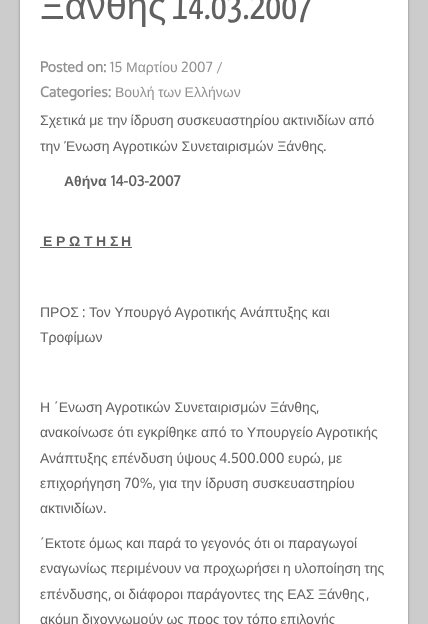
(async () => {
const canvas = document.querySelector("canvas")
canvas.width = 428
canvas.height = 624
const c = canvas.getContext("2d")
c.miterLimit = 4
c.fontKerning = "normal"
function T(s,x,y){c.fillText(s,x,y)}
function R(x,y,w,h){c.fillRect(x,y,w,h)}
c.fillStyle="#ccc"
R(0,0,428,624)
c.fillStyle="#22191966"
c.filter="blur(1.5px)"
c.beginPath()
c.rect(20,-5,388,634)
c.fill()
c.filter="none"
c.fillStyle="#fff"
R(20,0,388,624)
c.font="38px Liberation Sans"
c.fillStyle="#616161"
T("Ξάνθης",40,19)
c.font="200 38px Yanone Kaffeesatz"
T("14.03.2007",172,19)
c.font="bold 14px Oxygen"
c.fillStyle="#919191"
T("Posted on:",40,72)
c.font="14px Oxygen"
T("15",110,72)
c.font="14px Liberation Sans"
T("Μαρτίου",126,72)
c.font="14px Oxygen"
T("2007 /",181,72)
c.font="bold 14px Oxygen"
T("Categories:",40,97)
c.wordSpacing="-0.5px"
c.font="14px Liberation Sans"
T("Βουλή των Ελλήνων",115,97)
c.fillStyle="#616161"
T("Σχετικά με την ίδρυση συσκευαστηρίου ακτινιδίων από",40,125)
c.wordSpacing="0px"
T("την Ένωση Αγροτικών Συνεταιρισμών Ξάνθης",40,151)
c.font="14px Oxygen"
T(".",323,151)
c.font="bold 14px Liberation Sans"
T("Αθήνα",64,186)
c.font="bold 14px Oxygen"
T("14-03-2007",111,186)
c.font="bold 14px Liberation Sans"
T("Ε",43,246)
R(40,247,92,1)
T("Ρ",56,246)
T("Ω",69,246)
T("Τ",84,246)
T("Η",96,246)
T("Σ",110,246)
T("Η",121,246)
c.font="14px Liberation Sans"
T("ΠΡΟΣ",40,317)
c.font="14px Oxygen"
T(":",82,317)
c.font="14px Liberation Sans"
T("Τον Υπουργό Αγροτικής",89,317)
T("Ανάπτυξης και",240,317)
T("Τροφίμων",40,342)
T("Η ΄Ενωση Αγροτικών Συνεταιρισμών Ξάνθης",40,412)
c.font="14px Oxygen"
T(",",316,412)
c.wordSpacing="-0.25px"
c.font="14px Liberation Sans"
T("ανακοίνωσε ότι εγκρίθηκε από το Υπουργείο Αγροτικής",40,437)
c.wordSpacing="0px"
T("Ανάπτυξης επένδυση ύψους",40,463)
c.font="14px Oxygen"
T("4.500.000",219,463)
c.font="14px Liberation Sans"
T("ευρώ",288,463)
c.font="14px Oxygen"
T(",",321,463)
c.font="14px Liberation Sans"
T("με",328,463)
T("επιχορήγηση",40,488)
c.font="14px Oxygen"
T("70%,",124,488)
c.font="14px Liberation Sans"
T("για την ίδρυση συσκευαστηρίου",159,488)
T("ακτινιδίων",40,513)
c.font="14px Oxygen"
T(".",103,513)
c.wordSpacing="-0.5px"
c.font="14px Liberation Sans"
T("΄Εκτοτε όμως και παρά το γεγονός ότι οι παραγωγοί",40,548)
T("εναγωνίως περιμένουν να προχωρήσει η υλοποίηση της",40,573)
c.wordSpacing="0px"
T("επένδυσης",40,599)
c.font="14px Oxygen"
T(",",108,599)
c.wordSpacing="-0.5px"
c.font="14px Liberation Sans"
T("οι διάφοροι παράγοντες της ΕΑΣ Ξάνθης",114,599)
c.wordSpacing="0px"
c.font="14px Oxygen"
T(",",366,599)
c.wordSpacing="-0.5px"
c.font="14px Liberation Sans"
T("ακόμη διχογνωμούν ως προς τον τόπο επιλογής",40,624)
})()
